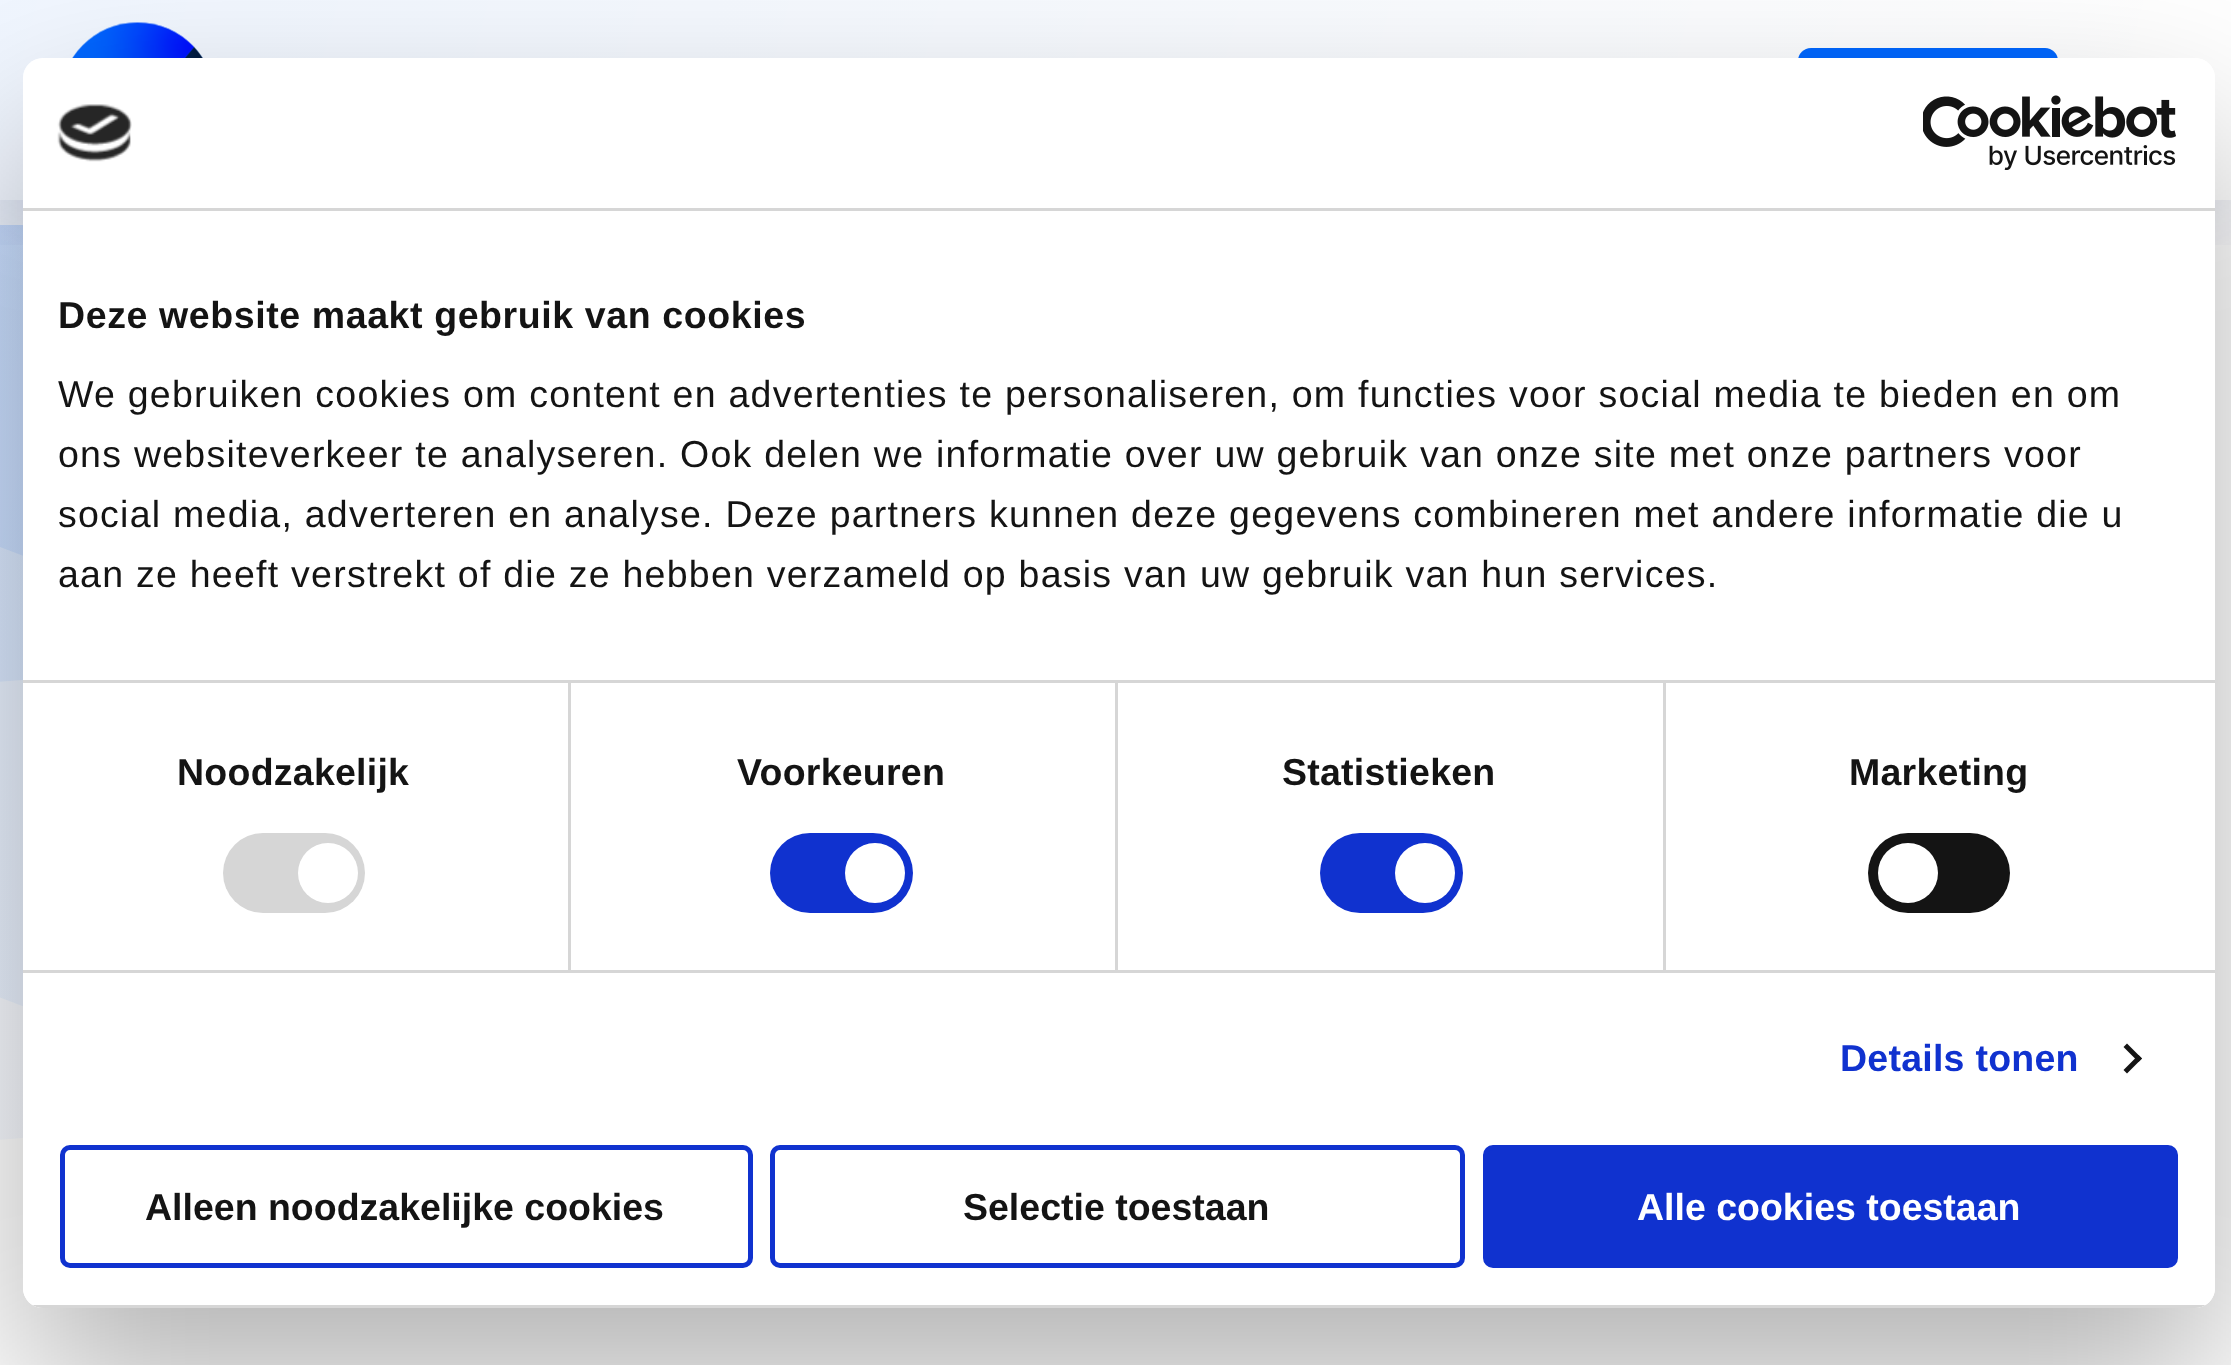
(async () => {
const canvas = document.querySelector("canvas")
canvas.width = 2231
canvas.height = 1365
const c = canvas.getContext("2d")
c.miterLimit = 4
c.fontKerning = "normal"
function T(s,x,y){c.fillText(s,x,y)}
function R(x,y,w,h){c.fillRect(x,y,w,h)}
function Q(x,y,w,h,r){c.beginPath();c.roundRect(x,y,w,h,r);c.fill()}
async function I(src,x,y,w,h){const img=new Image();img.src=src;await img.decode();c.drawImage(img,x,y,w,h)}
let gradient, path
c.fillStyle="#fff"
R(0,0,2231,1365)
c.save()
c.beginPath()
c.rect(0,225,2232,919)
c.clip()
gradient = c.createLinearGradient(-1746,-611,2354,-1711)
gradient.addColorStop(0,"#fff")
gradient.addColorStop(.89,"#e8f1ff")
c.fillStyle = gradient
c.beginPath()
c.arc(-152.5,-1038.5,2183.5,0,7)
c.fill()
c.restore()
gradient = c.createLinearGradient(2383,-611,-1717,-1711)
gradient.addColorStop(0,"#0067ff00")
gradient.addColorStop(.89,"#0067ff1a")
c.fillStyle = gradient
c.beginPath()
c.arc(789,-1038.5,2183.5,0,7)
c.fill()
c.save()
c.beginPath()
c.rect(0,225,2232,919)
c.clip()
gradient = c.createLinearGradient(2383,-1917,-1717,-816)
gradient.addColorStop(0,"#0067ff00")
gradient.addColorStop(.89,"#0067ff1a")
c.fillStyle = gradient
c.beginPath()
c.arc(789,-1489,2183.5,0,7)
c.fill()
gradient = c.createLinearGradient(-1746,-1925,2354,-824)
gradient.addColorStop(0,"#0067ff00")
gradient.addColorStop(.89,"#0067ff1a")
c.fillStyle = gradient
c.beginPath()
c.arc(-152.5,-1496.5,2183.5,0,7)
c.fill()
c.restore()
c.save()
c.beginPath()
c.rect(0,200,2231,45)
c.clip()
c.fillStyle="#040e721a"
c.filter="blur(31px)"
c.beginPath()
c.rect(0,25,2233,200)
c.fill()
c.filter="none"
c.restore()
await I("1.png",72,22,131,36)
c.fillStyle="#0067ff"
Q(1798,48,260,105,13)
c.save()
path = new Path2D("M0 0h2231v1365h-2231zm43 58h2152c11 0 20 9 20 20v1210c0 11-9 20-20 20h-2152c-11 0-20-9-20-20v-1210c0-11 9-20 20-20z")
c.clip(path,"evenodd")
c.fillStyle="#0000004d"
c.filter="blur(85px)"
c.beginPath()
c.roundRect(23,138,2192,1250,20)
c.fill()
c.filter="none"
c.restore()
c.fillStyle="#fff"
Q(23,58,2192,1250,20)
c.fillStyle="#d6d6d6"
R(23,208,2192,3)
await I("2.png",57,104,75,58)
await I("3.png",1923,95,253,75)
R(23,680,2192,3)
c.letterSpacing="0.6px"
c.font="bold 37.5px Liberation Sans"
c.fillStyle="#141414"
T("Deze website maakt gebruik van cookies",58,328)
c.letterSpacing="1.25px"
c.font="37.5px Liberation Sans"
T("We gebruiken cookies om content en advertenties te personaliseren, om functies voor social media te bieden en om",58,407)
T("ons websiteverkeer te analyseren. Ook delen we informatie over uw gebruik van onze site met onze partners voor",58,467)
T("social media, adverteren en analyse. Deze partners kunnen deze gegevens combineren met andere informatie die u",58,527)
T("aan ze heeft verstrekt of die ze hebben verzameld op basis van uw gebruik van hun services.",58,587)
c.fillStyle="#d6d6d6"
R(23,970,2192,3)
R(568,683,3,287)
c.letterSpacing="0.25px"
c.font="bold 37.5px Liberation Sans"
c.fillStyle="#141414"
T("Noodzakelijk",177,785)
c.fillStyle="#d6d6d6"
Q(223,833,142,80,40)
c.fillStyle="#fff"
c.beginPath()
c.arc(328,873,30,0,7)
c.fill()
c.fillStyle="#d6d6d6"
R(1115,683,3,287)
c.fillStyle="#141414"
T("Voorkeuren",737,785)
c.fillStyle="#1032cf"
Q(770,833,143,80,40)
c.fillStyle="#fff"
c.beginPath()
c.arc(875,873,30,0,7)
c.fill()
c.fillStyle="#d6d6d6"
R(1663,683,3,287)
c.fillStyle="#141414"
T("Statistieken",1282,785)
c.fillStyle="#1032cf"
Q(1320,833,143,80,40)
c.fillStyle="#fff"
c.beginPath()
c.arc(1425,873,30,0,7)
c.fill()
c.fillStyle="#141414"
T("Marketing",1849,785)
Q(1868,833,142,80,40)
c.fillStyle="#fff"
c.beginPath()
c.arc(1908,873,30,0,7)
c.fill()
c.fillStyle="#1032cf"
T("Details tonen",1840,1071)
c.fillStyle="#141414"
path = new Path2D("M2127 1043.5l15 15l-3.5 3.5l-15-15z")
c.fill(path)
path = new Path2D("M2138.5 1055l3.5 3.5l-15 15l-3.5-3.5z")
c.fill(path)
c.save()
c.beginPath()
c.roundRect(23,58,2192,1250,20)
c.clip()
c.fillStyle="#d6d6d6"
R(32,1305,2174,3)
c.restore()
c.beginPath()
c.roundRect(62.5,1147.5,688,118,7.5)
c.strokeStyle="#1032cf"
c.lineWidth=5
c.stroke()
c.letterSpacing="0px"
T("Alleen noodzakelijke cookies",145,1220)
c.beginPath()
c.roundRect(772.5,1147.5,690,118,7.5)
c.stroke()
T("Selectie toestaan",963,1220)
c.fillStyle="#1032cf"
c.beginPath()
c.roundRect(1485.5,1147.5,690,118,7.5)
c.fill()
c.stroke()
c.fillStyle="#fff"
T("Alle cookies toestaan",1637,1220)
})()
